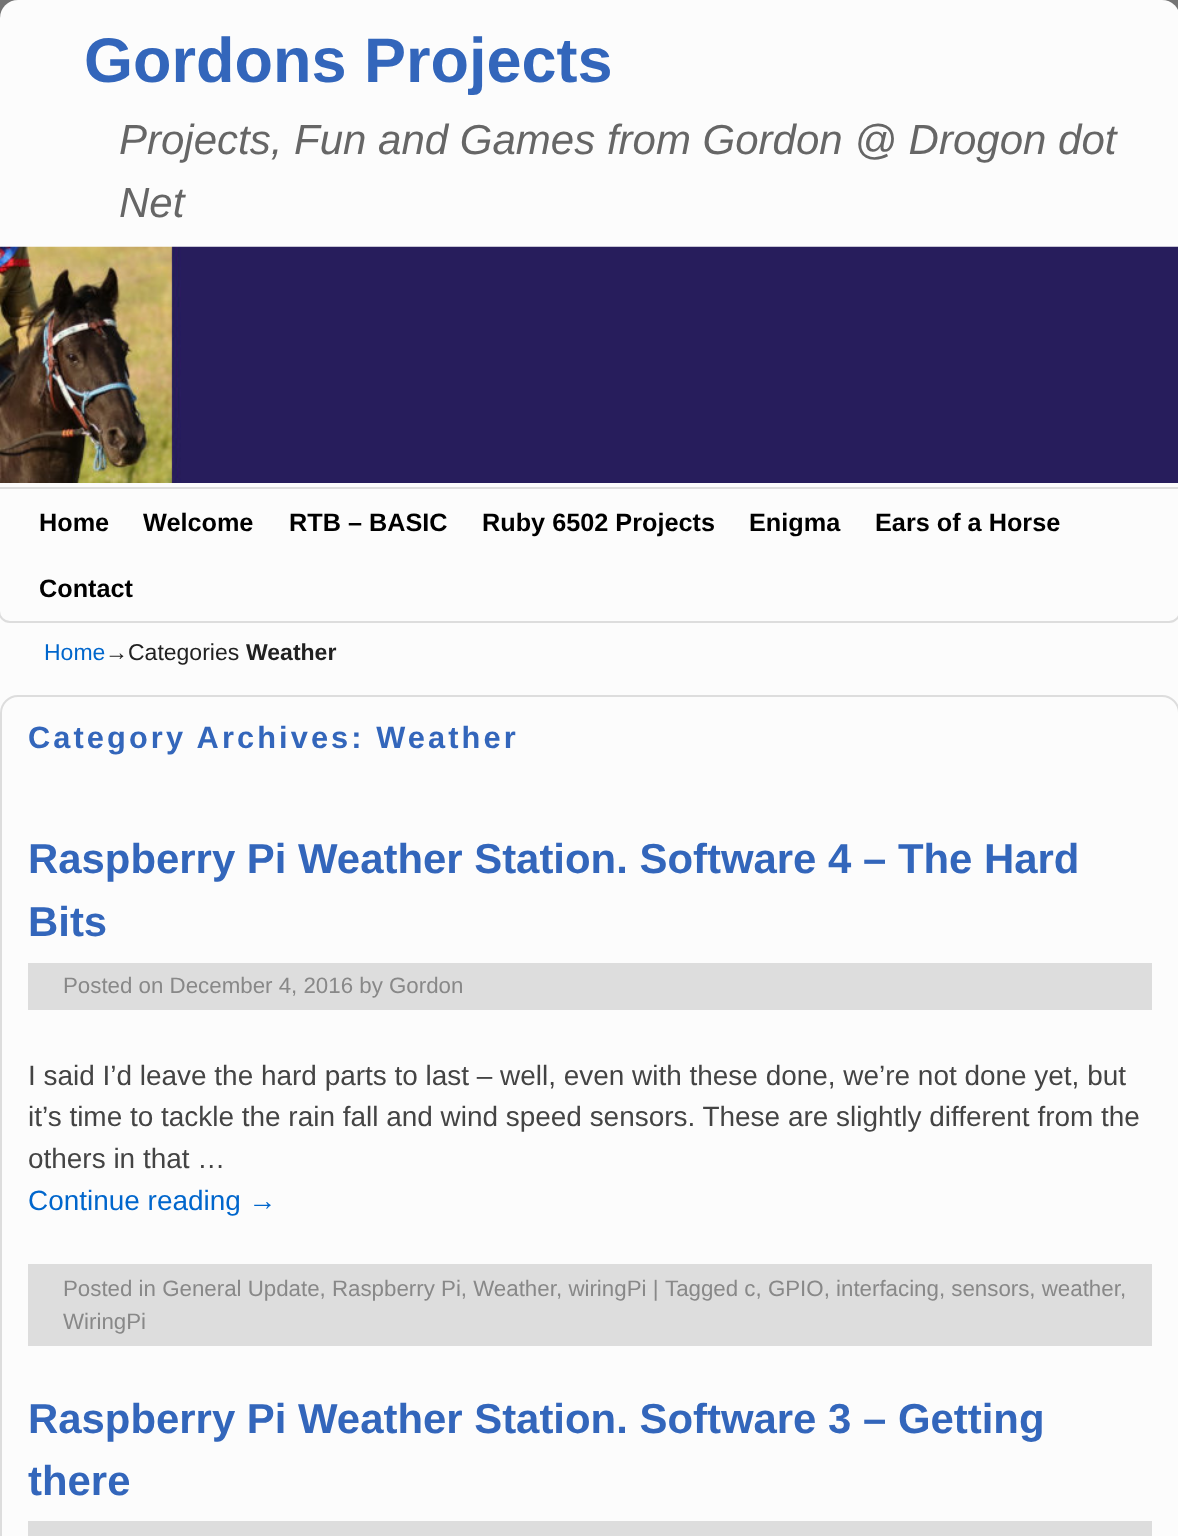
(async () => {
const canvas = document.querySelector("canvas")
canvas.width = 1178
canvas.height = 1536
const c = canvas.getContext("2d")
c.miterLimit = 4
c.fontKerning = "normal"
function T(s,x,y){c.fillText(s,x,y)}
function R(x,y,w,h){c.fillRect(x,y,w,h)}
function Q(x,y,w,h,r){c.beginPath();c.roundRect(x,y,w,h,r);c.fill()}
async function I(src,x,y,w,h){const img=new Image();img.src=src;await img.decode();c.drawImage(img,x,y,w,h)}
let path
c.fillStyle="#e8e8e8"
R(0,0,1178,1536)
await I("1.png",0,0,1178,18)
c.fillStyle="#fcfcfc"
Q(0,0,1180,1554,18)
c.font="bold 63px Liberation Sans"
c.fillStyle="#36b"
T("Gordons Projects",84,82)
c.font="italic 42px Liberation Sans"
c.fillStyle="#666"
T("Projects, Fun and Games from Gordon @ Drogon dot",119,154)
T("Net",119,217)
await I("2.png",0,246,1178,237)
path = new Path2D("M-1 488h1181v123c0 6-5 11-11 11h-1159c-6 0-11-5-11-11z")
c.strokeStyle="#ddd"
c.lineWidth=2
c.stroke(path)
c.font="bold 25.25px Liberation Sans"
c.fillStyle="#000"
T("Home",39,531)
T("Welcome",143,531)
T("RTB – BASIC",289,531)
T("Ruby 6502 Projects",482,531)
T("Enigma",749,531)
T("Ears of a Horse",875,531)
T("Contact",39,597)
c.font="23px Liberation Sans"
c.fillStyle="#06c"
T("Home",44,660)
c.fillStyle="#212121"
T("→Categories",105,660)
c.font="bold 23px Liberation Sans"
T("Weather",246,660)
c.beginPath()
c.roundRect(1,696,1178,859,17)
c.stroke()
c.letterSpacing="3.1px"
c.font="bold 30.75px Liberation Sans"
c.fillStyle="#36b"
T("Category Archives: Weather",28,748)
c.letterSpacing="0px"
c.font="bold 41.9px Liberation Sans"
T("Raspberry Pi Weather Station. Software 4 – The Hard",28,873)
T("Bits",28,936)
c.fillStyle="#ddd"
R(28,963,1124,47)
c.font="22.3px Liberation Sans"
c.fillStyle="#888"
T("Posted on December 4, 2016 by Gordon",63,993)
c.font="27.95px Liberation Sans"
c.fillStyle="#444"
T("I said I’d leave the hard parts to last – well, even with these done, we’re not done yet, but",28,1085)
T("it’s time to tackle the rain fall and wind speed sensors. These are slightly different from the",28,1126)
T("others in that …",28,1168)
c.fillStyle="#06c"
T("Continue reading →",28,1210)
c.fillStyle="#ddd"
R(28,1264,1124,82)
c.font="22.3px Liberation Sans"
c.fillStyle="#888"
T("Posted in General Update, Raspberry Pi, Weather",63,1296)
T(", wiringPi |",556,1296)
T("Tagged c, GPIO, interfacing, sensors, weather",665,1296)
T(",",1120,1296)
T("WiringPi",63,1329)
c.font="bold 41.9px Liberation Sans"
c.fillStyle="#36b"
T("Raspberry Pi Weather Station. Software 3 – Getting",28,1433)
T("there",28,1495)
c.fillStyle="#ddd"
R(28,1521,1124,15)
})()
